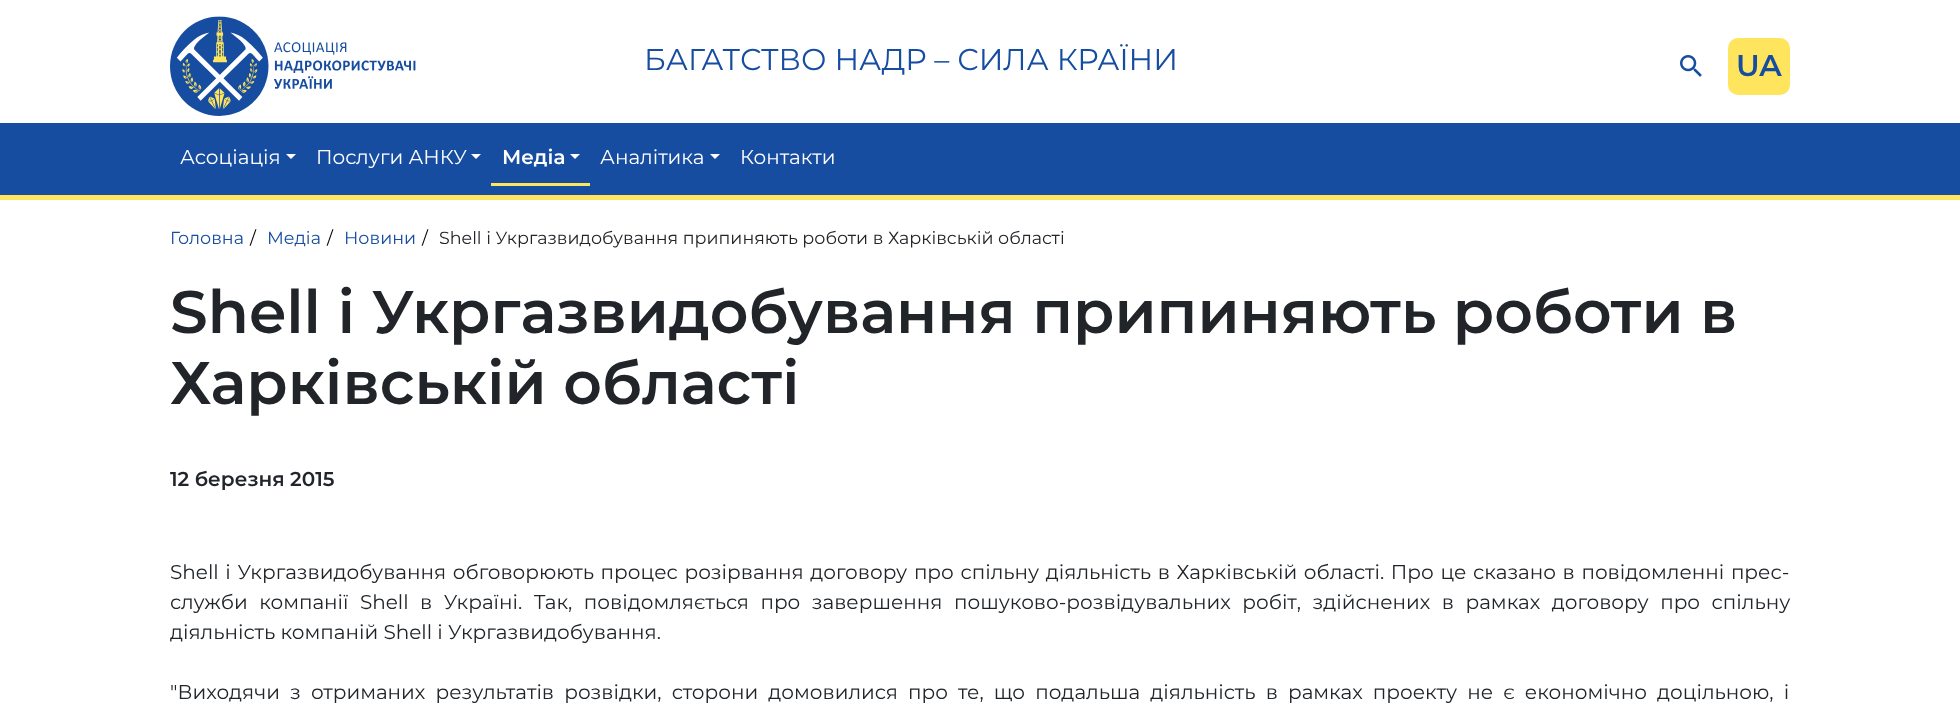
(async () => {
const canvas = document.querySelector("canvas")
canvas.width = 1960
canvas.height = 715
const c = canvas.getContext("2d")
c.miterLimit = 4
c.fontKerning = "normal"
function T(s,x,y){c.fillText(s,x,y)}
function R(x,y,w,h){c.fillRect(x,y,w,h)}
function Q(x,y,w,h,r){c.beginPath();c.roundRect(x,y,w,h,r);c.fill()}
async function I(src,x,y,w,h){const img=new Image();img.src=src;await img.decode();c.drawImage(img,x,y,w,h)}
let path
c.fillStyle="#fff"
R(0,0,1960,715)
c.save()
path = new Path2D("M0 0h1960v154h-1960zm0 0h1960v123h-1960z")
c.clip(path,"evenodd")
c.fillStyle="#0000001a"
c.filter="blur(6px)"
c.beginPath()
c.rect(0,13,1960,122)
c.fill()
c.filter="none"
c.restore()
await I("1.png",170,16,246,100)
c.font="30px Montserrat"
c.fillStyle="#174da1"
T("БАГАТСТВО НАДР – СИЛА КРАЇНИ",644,70)
await I("2.png",1680,55,22,22)
c.fillStyle="#ffe55e"
Q(1728,38,62,57,10)
c.font="600 30px Montserrat"
c.fillStyle="#174da1"
T("UA",1736,76)
R(0,123,1960,72)
c.fillStyle="#ffe55e"
R(0,195,1960,5)
c.font="20px Montserrat"
c.fillStyle="#fff"
T("Асоціація",180,164)
path = new Path2D("M286 154h10l-5 5z")
c.fill(path)
T("Послуги АНКУ",316,164)
path = new Path2D("M471 154h10l-5 5z")
c.fill(path)
c.fillStyle="#ffe55e"
R(491,183,99,3)
c.font="600 20px Montserrat"
c.fillStyle="#fff"
T("Медіа",502,164)
path = new Path2D("M570 154h10l-5 5z")
c.fill(path)
c.font="20px Montserrat"
T("Аналітика",600,164)
path = new Path2D("M710 154h10l-5 5z")
c.fill(path)
T("Контакти",740,164)
c.font="17.5px Montserrat"
c.fillStyle="#174da1"
T("Головна",170,244)
c.fillStyle="#000"
T("/",250,244)
c.fillStyle="#174da1"
T("Медіа",267,244)
c.fillStyle="#000"
T("/",327,244)
c.fillStyle="#174da1"
T("Новини",344,244)
c.fillStyle="#000"
T("/",422,244)
c.fillStyle="#212529"
T("Shell і Укргазвидобування припиняють роботи в Харківській області",439,244)
c.font="600 60px Montserrat"
T("Shell і Укргазвидобування припиняють роботи в",170,333)
T("Харківській області",170,404)
c.font="600 20px Montserrat"
T("12 березня 2015",170,486)
c.wordSpacing="1.4px"
c.font="20px Montserrat"
T("Shell і Укргазвидобування обговорюють процес розірвання договору про спільну діяльність в Харківській області. Про це сказано в повідомленні прес-",170,579)
c.wordSpacing="6.25px"
T("служби компанії Shell в Україні. Так, повідомляється про завершення пошуково-розвідувальних робіт, здійснених в рамках договору про спільну",170,609)
c.wordSpacing="0px"
T("діяльність компаній Shell і Укргазвидобування.",170,639)
c.wordSpacing="4.9px"
T("\"Виходячи з отриманих результатів розвідки, сторони домовилися про те, що подальша діяльність в рамках проекту не є економічно доцільною, і",170,699)
})()
